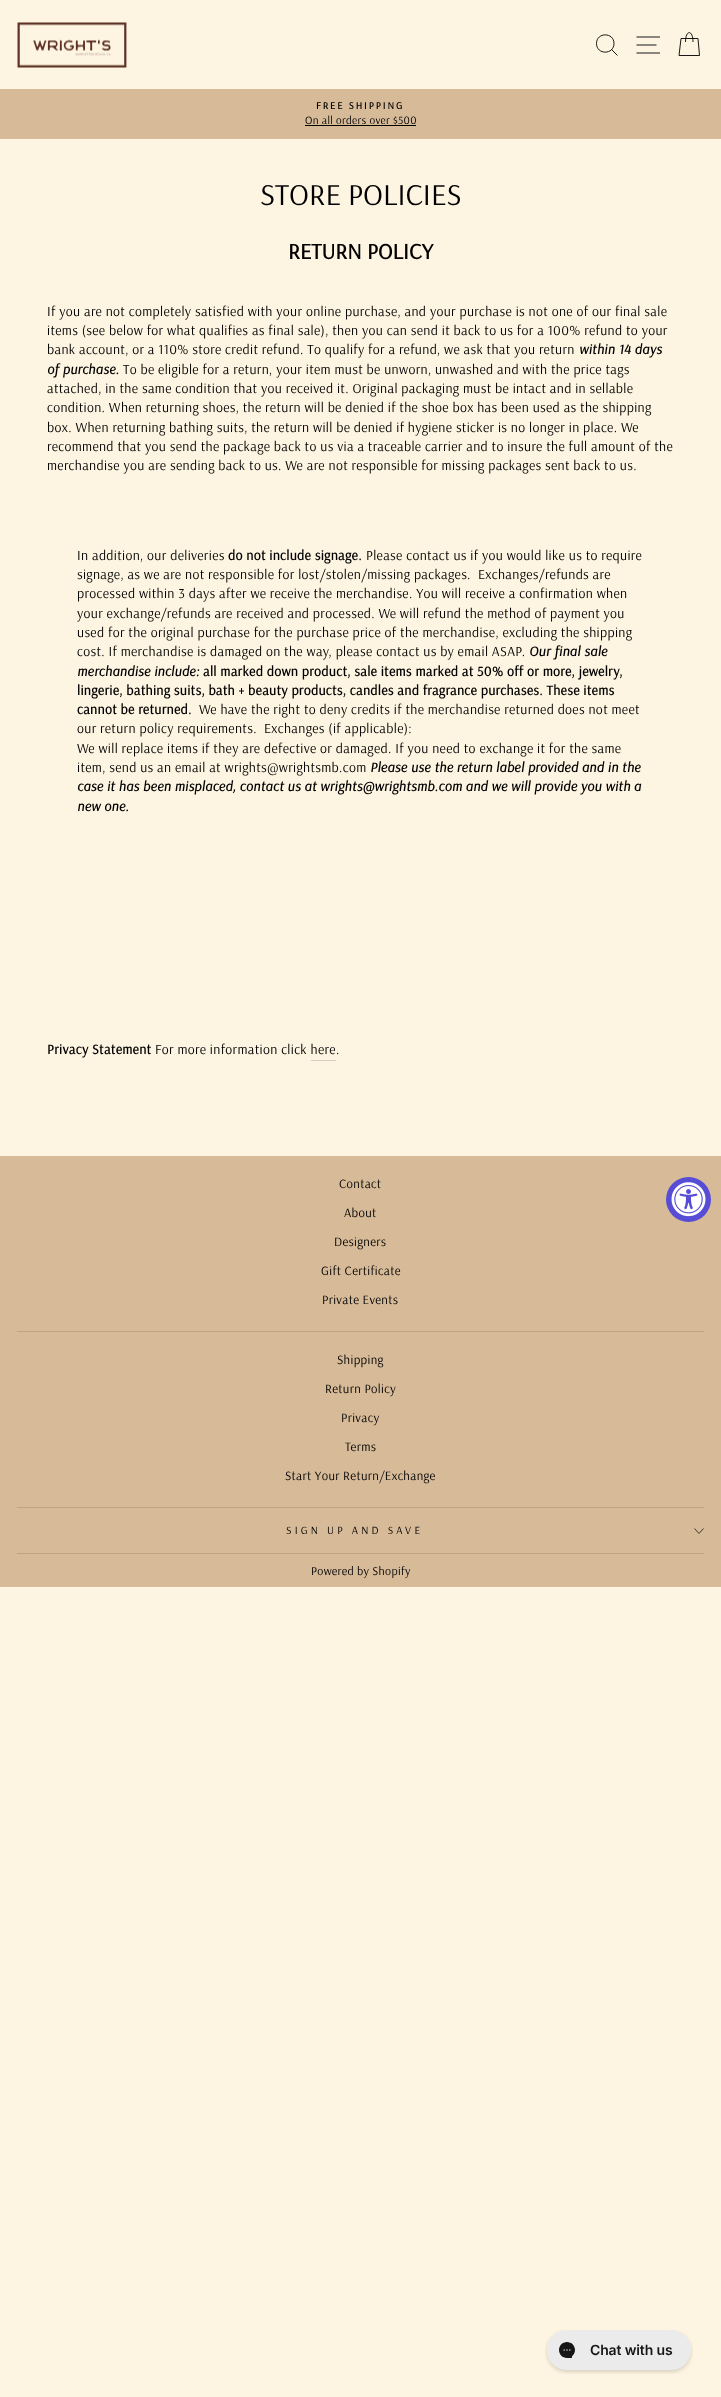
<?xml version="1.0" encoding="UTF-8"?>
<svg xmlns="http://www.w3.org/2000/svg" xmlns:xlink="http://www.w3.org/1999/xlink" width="721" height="2397">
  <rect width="100%" height="100%" fill="#fdf4e1" />
  <image x="17" y="22" width="110" height="46" xlink:href="image1.png" />
  <path d="M 614 43.5 c 0 11.5 -17.5 11.5 -17.5 0 c 0 -11.5 17.5 -11.5 17.5 0 z m 3.5 12 l -6 -6" fill="none" stroke="#000000" stroke-width="0.9" />
  <path d="M 636.5 37 h 23.5 m -23.5 8 h 20 m -20 8 h 23.5 m 25.5 -11 c 0 -12.5 7.5 -12.5 7.5 0" fill="none" stroke="#000000" stroke-width="0.9" />
  <path d="M 681 38.5 h 17 l 1.5 17 h -20.5 z" fill="none" stroke="#000000" stroke-width="0.9" />
  <rect y="89" width="721" height="50" fill="#d7ba98" />
  <rect x="305" y="125" width="111" height="1" fill="#000000" />
  <rect x="311" y="1060" width="25" height="1" fill="#d7cfbf" />
  <rect y="1156" width="721" height="431" fill="#d7ba98" />
  <rect x="17" y="1331" width="687" height="1" fill="#bda486" />
  <rect x="17" y="1507" width="687" height="1" fill="#bda486" />
  <path d="M 694.5 1528.5 l 4.5 5 l 4.5 -5" fill="none" stroke="#000000" stroke-width="0.7" />
  <rect x="17" y="1553" width="687" height="1" fill="#bda486" />
  <circle cx="688.5" cy="1199.5" r="22.5" fill="#574cd5" />
  <image x="671" y="1182" width="35" height="35" xlink:href="image2.png" />
  <image x="545" y="2330" width="148" height="44" xlink:href="image3.png" />
  <text x="316" y="109" style="font-family: Arsenal; font-size: 10.1px; font-weight: bold; letter-spacing: 2px; fill: #000000">FREE SHIPPING</text>
  <text x="305" y="124" style="font-family: Arsenal; font-size: 11.25px; letter-spacing: 0.34px; fill: #000000">On all orders over $500</text>
  <text x="260" y="205" style="font-family: Arsenal; font-size: 30.5px; fill: #000000">STORE POLICIES</text>
  <text x="288" y="259" style="font-family: Arsenal; font-size: 22.25px; font-weight: bold; fill: #000000">RETURN POLICY</text>
  <text x="47" y="316" style="font-family: Arsenal; font-size: 13.8px; letter-spacing: 0.34px; fill: #000000">If you are not completely satisfied with your online purchase, and your purchase is not one of our final sale</text>
  <text x="47" y="335" style="font-family: Arsenal; font-size: 13.8px; letter-spacing: 0.34px; fill: #000000">items (see below for what qualifies as final sale), then you can send it back to us for a 100% refund to your</text>
  <text x="47" y="354" style="font-family: Arsenal; font-size: 13.8px; letter-spacing: 0.34px; fill: #000000">bank account, or a 110% store credit refund. To qualify for a refund, we ask that you return</text>
  <text x="579" y="354" style="font-family: Arsenal; font-size: 13.8px; font-weight: bold; font-style: italic; letter-spacing: 0.34px; fill: #000000">within 14 days</text>
  <text x="47" y="374" style="font-family: Arsenal; font-size: 13.8px; font-weight: bold; font-style: italic; letter-spacing: 0.34px; fill: #000000">of purchase.</text>
  <text x="123" y="374" style="font-family: Arsenal; font-size: 13.8px; letter-spacing: 0.34px; fill: #000000">To be eligible for a return, your item must be unworn, unwashed and with the price tags</text>
  <text x="47" y="393" style="font-family: Arsenal; font-size: 13.8px; letter-spacing: 0.34px; fill: #000000">attached, in the same condition that you received it. Original packaging must be intact and in sellable</text>
  <text x="47" y="412" style="font-family: Arsenal; font-size: 13.8px; letter-spacing: 0.34px; fill: #000000">condition. When returning shoes, the return will be denied if the shoe box has been used as the shipping</text>
  <text x="47" y="432" style="font-family: Arsenal; font-size: 13.8px; letter-spacing: 0.34px; fill: #000000">box. When returning bathing suits, the return will be denied if hygiene sticker is no longer in place. We</text>
  <text x="47" y="451" style="font-family: Arsenal; font-size: 13.8px; letter-spacing: 0.34px; fill: #000000">recommend that you send the package back to us via a traceable carrier and to insure the full amount of the</text>
  <text x="47" y="470" style="font-family: Arsenal; font-size: 13.8px; letter-spacing: 0.34px; fill: #000000">merchandise you are sending back to us. We are not responsible for missing packages sent back to us.</text>
  <text x="77" y="560" style="font-family: Arsenal; font-size: 13.8px; letter-spacing: 0.34px; fill: #000000">In addition, our deliveries</text>
  <text x="228" y="560" style="font-family: Arsenal; font-size: 13.8px; font-weight: bold; letter-spacing: 0.34px; fill: #000000">do not include signage.</text>
  <text x="366" y="560" style="font-family: Arsenal; font-size: 13.8px; letter-spacing: 0.34px; fill: #000000">Please contact us if you would like us to require</text>
  <text x="77" y="579" style="font-family: Arsenal; font-size: 13.8px; letter-spacing: 0.34px; fill: #000000">signage, as we are not responsible for lost/stolen/missing packages.</text>
  <text x="478" y="579" style="font-family: Arsenal; font-size: 13.8px; letter-spacing: 0.34px; fill: #000000">Exchanges/refunds are</text>
  <text x="77" y="598" style="font-family: Arsenal; font-size: 13.8px; letter-spacing: 0.34px; fill: #000000">processed within 3 days after we receive the merchandise. You will receive a confirmation when</text>
  <text x="77" y="618" style="font-family: Arsenal; font-size: 13.8px; letter-spacing: 0.34px; fill: #000000">your exchange/refunds are received and processed. We will refund the method of payment you</text>
  <text x="77" y="637" style="font-family: Arsenal; font-size: 13.8px; letter-spacing: 0.34px; fill: #000000">used for the original purchase for the purchase price of the merchandise, excluding the shipping</text>
  <text x="77" y="656" style="font-family: Arsenal; font-size: 13.8px; letter-spacing: 0.34px; fill: #000000">cost. If merchandise is damaged on the way, please contact us by email ASAP.</text>
  <text x="529" y="656" style="font-family: Arsenal; font-size: 13.8px; font-weight: bold; font-style: italic; letter-spacing: 0.34px; fill: #000000">Our final sale</text>
  <text x="77" y="676" style="font-family: Arsenal; font-size: 13.8px; font-weight: bold; font-style: italic; letter-spacing: 0.34px; fill: #000000">merchandise include:</text>
  <text x="203" y="676" style="font-family: Arsenal; font-size: 13.8px; font-weight: bold; letter-spacing: 0.34px; fill: #000000">all marked down product, sale items marked at 50% off or more, jewelry,</text>
  <text x="77" y="695" style="font-family: Arsenal; font-size: 13.8px; font-weight: bold; letter-spacing: 0.34px; fill: #000000">lingerie, bathing suits, bath + beauty products, candles and fragrance purchases. These items</text>
  <text x="77" y="714" style="font-family: Arsenal; font-size: 13.8px; font-weight: bold; letter-spacing: 0.34px; fill: #000000">cannot be returned.</text>
  <text x="199" y="714" style="font-family: Arsenal; font-size: 13.8px; letter-spacing: 0.34px; fill: #000000">We have the right to deny credits if the merchandise returned does not meet</text>
  <text x="77" y="733" style="font-family: Arsenal; font-size: 13.8px; letter-spacing: 0.34px; fill: #000000" xml:space="preserve">our return policy requirements.  Exchanges (if applicable):</text>
  <text x="77" y="753" style="font-family: Arsenal; font-size: 13.8px; letter-spacing: 0.34px; fill: #000000">We will replace items if they are defective or damaged. If you need to exchange it for the same</text>
  <text x="77" y="772" style="font-family: Arsenal; font-size: 13.8px; letter-spacing: 0.34px; fill: #000000">item, send us an email at wrights@wrightsmb.com</text>
  <text x="370" y="772" style="font-family: Arsenal; font-size: 13.8px; font-weight: bold; font-style: italic; letter-spacing: 0.34px; fill: #000000">Please use the return label provided and in the</text>
  <text x="77" y="791" style="font-family: Arsenal; font-size: 13.8px; font-weight: bold; font-style: italic; letter-spacing: 0.34px; fill: #000000">case it has been misplaced, contact us at wrights@wrightsmb.com and we will provide you with a</text>
  <text x="77" y="811" style="font-family: Arsenal; font-size: 13.8px; font-weight: bold; font-style: italic; letter-spacing: 0.34px; fill: #000000">new one.</text>
  <text x="47" y="1054" style="font-family: Arsenal; font-size: 13.8px; font-weight: bold; letter-spacing: 0.34px; fill: #000000">Privacy Statement</text>
  <text x="155" y="1054" style="font-family: Arsenal; font-size: 13.8px; letter-spacing: 0.34px; fill: #000000">For more information click here</text>
  <text x="336" y="1054" style="font-family: Arsenal; font-size: 13.8px; letter-spacing: 0.34px; fill: #000000">.</text>
  <text x="339" y="1188" style="font-family: Arsenal; font-size: 12.75px; letter-spacing: 0.34px; fill: #000000">Contact</text>
  <text x="344" y="1217" style="font-family: Arsenal; font-size: 12.75px; letter-spacing: 0.34px; fill: #000000">About</text>
  <text x="334" y="1246" style="font-family: Arsenal; font-size: 12.75px; letter-spacing: 0.34px; fill: #000000">Designers</text>
  <text x="321" y="1275" style="font-family: Arsenal; font-size: 12.75px; letter-spacing: 0.34px; fill: #000000">Gift Certificate</text>
  <text x="322" y="1304" style="font-family: Arsenal; font-size: 12.75px; letter-spacing: 0.34px; fill: #000000">Private Events</text>
  <text x="337" y="1364" style="font-family: Arsenal; font-size: 12.75px; letter-spacing: 0.34px; fill: #000000">Shipping</text>
  <text x="325" y="1393" style="font-family: Arsenal; font-size: 12.75px; letter-spacing: 0.34px; fill: #000000">Return Policy</text>
  <text x="341" y="1422" style="font-family: Arsenal; font-size: 12.75px; letter-spacing: 0.34px; fill: #000000">Privacy</text>
  <text x="345" y="1451" style="font-family: Arsenal; font-size: 12.75px; letter-spacing: 0.34px; fill: #000000">Terms</text>
  <text x="285" y="1480" style="font-family: Arsenal; font-size: 12.75px; letter-spacing: 0.34px; fill: #000000">Start Your Return/Exchange</text>
  <text x="286" y="1534" style="font-family: Arsenal; font-size: 11px; letter-spacing: 3.25px; fill: #000000">SIGN UP AND SAVE</text>
  <text x="311" y="1575" style="font-family: Arsenal; font-size: 12px; letter-spacing: 0.34px; fill: #000000">Powered by Shopify</text>
</svg>
